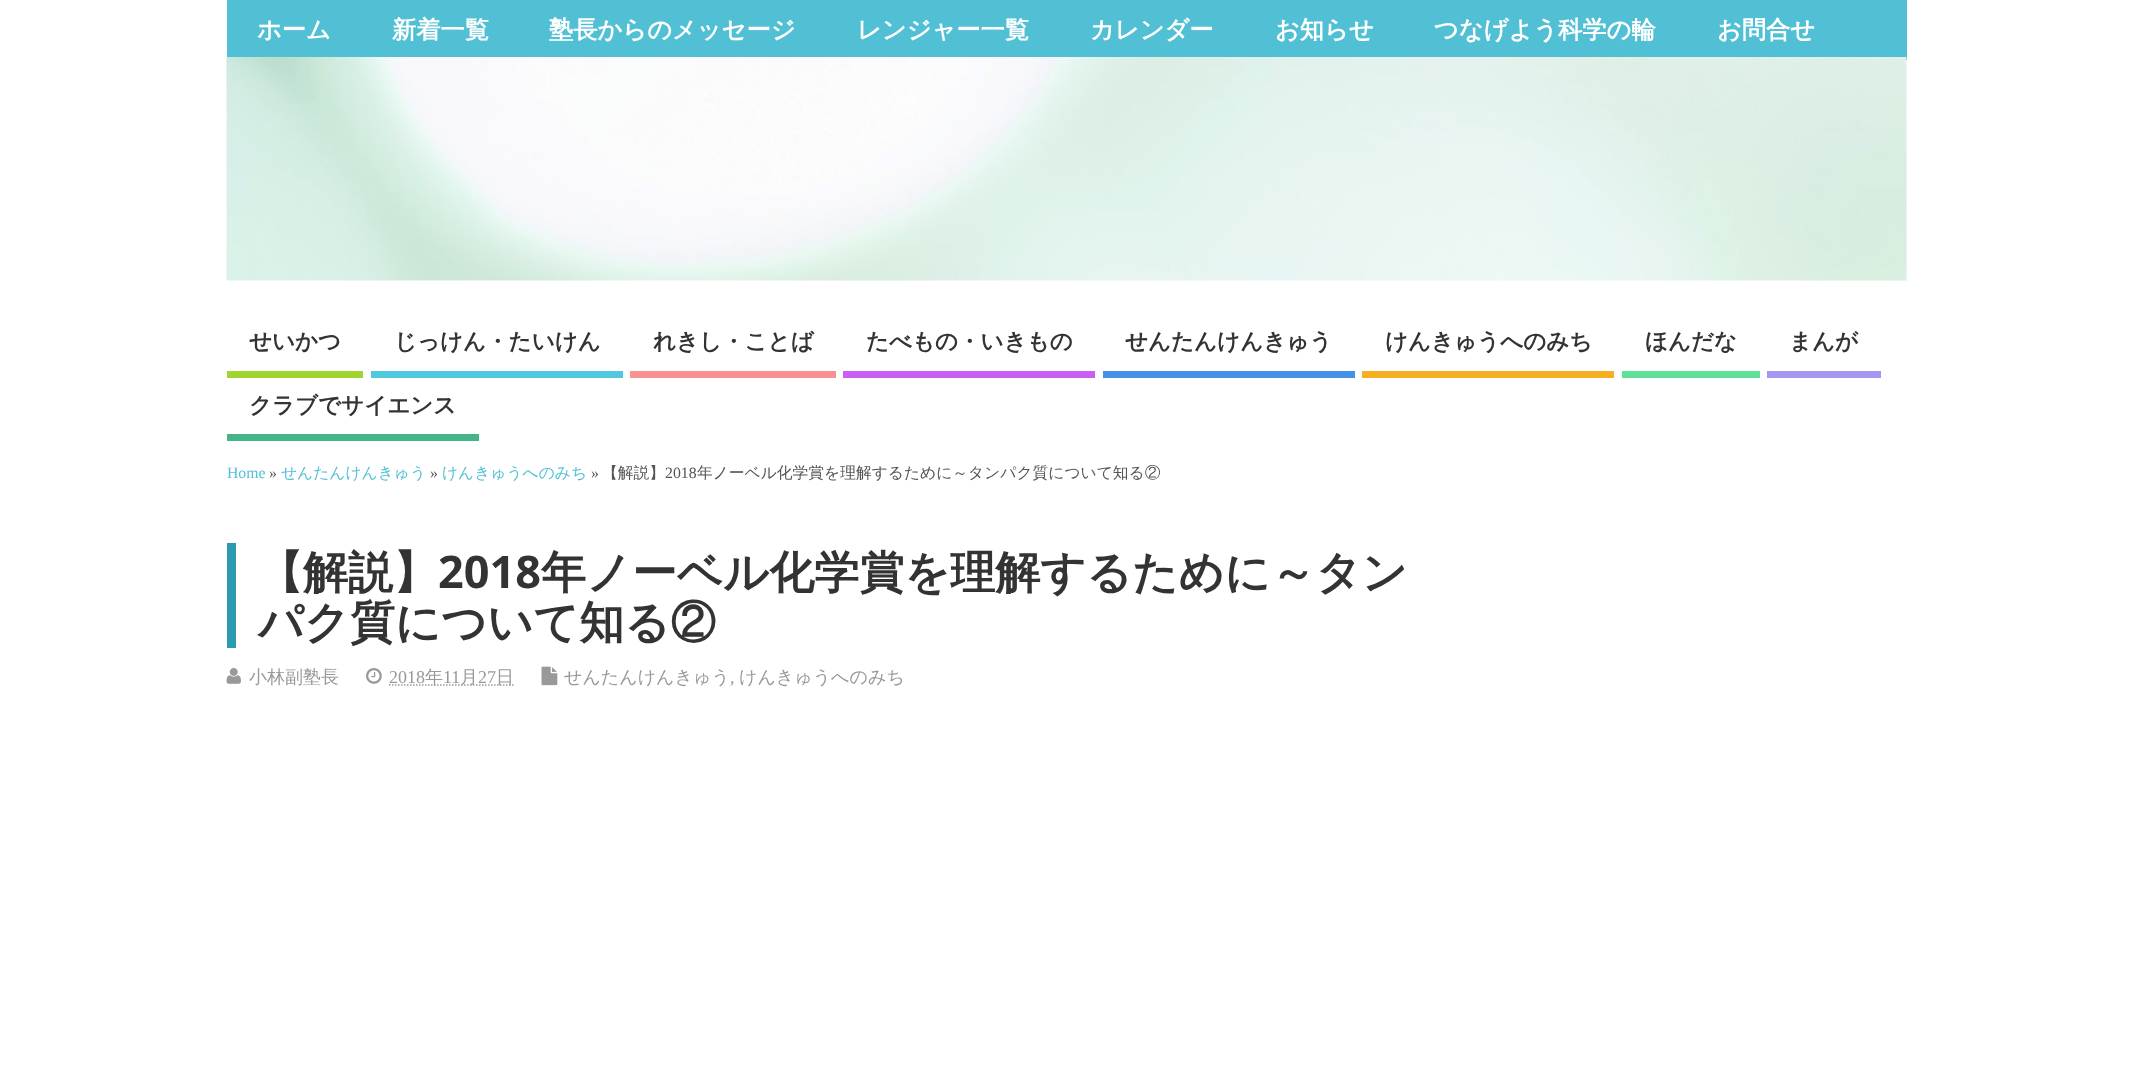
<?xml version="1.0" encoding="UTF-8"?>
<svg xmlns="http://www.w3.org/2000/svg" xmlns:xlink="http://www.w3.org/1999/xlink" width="2133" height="1072">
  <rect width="100%" height="100%" fill="#ffffff" />
  <rect x="227" width="1680" height="60" fill="#52c0d4" />
  <image x="226" y="57" width="1681" height="224" xlink:href="image1.png" />
  <rect x="227" y="371" width="136" height="7" fill="#a2d42f" />
  <rect x="371" y="371" width="252" height="7" fill="#50c9df" />
  <rect x="630" y="371" width="206" height="7" fill="#fa9191" />
  <rect x="843" y="371" width="252" height="7" fill="#cb5ef2" />
  <rect x="1103" y="371" width="252" height="7" fill="#4591e8" />
  <rect x="1362" y="371" width="252" height="7" fill="#f5af23" />
  <rect x="1622" y="371" width="138" height="7" fill="#5ee09b" />
  <rect x="1767" y="371" width="114" height="7" fill="#a796f2" />
  <rect x="227" y="434" width="252" height="7" fill="#45b588" />
  <rect x="227" y="543" width="9" height="105" fill="#2b9aae" />
  <image x="226" y="668" width="15" height="16" xlink:href="image2.png" />
  <image x="366" y="668" width="16" height="16" xlink:href="image3.png" />
  <path d="M 389 685 h 125" fill="none" stroke="#999999" stroke-width="1.5" stroke-dasharray="1.5 1.5" />
  <image x="541" y="666" width="17" height="20" xlink:href="image4.png" />
  <text x="257" y="38" style="font-family: WenQuanYi Zen Hei; font-size: 24.25px; font-weight: bold; fill: #ffffff">ホーム</text>
  <text x="392" y="38" style="font-family: WenQuanYi Zen Hei; font-size: 24.25px; font-weight: bold; fill: #ffffff">新着一覧</text>
  <text x="549" y="38" style="font-family: WenQuanYi Zen Hei; font-size: 24.25px; font-weight: bold; fill: #ffffff">塾長からのメッセージ</text>
  <text x="857" y="38" style="font-family: WenQuanYi Zen Hei; font-size: 24.25px; font-weight: bold; fill: #ffffff">レンジャー一覧</text>
  <text x="1090" y="38" style="font-family: WenQuanYi Zen Hei; font-size: 24.25px; font-weight: bold; fill: #ffffff">カレンダー</text>
  <text x="1275" y="38" style="font-family: WenQuanYi Zen Hei; font-size: 24.25px; font-weight: bold; fill: #ffffff">お知らせ</text>
  <text x="1434" y="38" style="font-family: WenQuanYi Zen Hei; font-size: 24.25px; font-weight: bold; fill: #ffffff">つなげよう科学の輪</text>
  <text x="1717" y="38" style="font-family: WenQuanYi Zen Hei; font-size: 24.25px; font-weight: bold; fill: #ffffff">お問合せ</text>
  <text x="249" y="349" style="font-family: WenQuanYi Zen Hei; font-size: 22.5px; font-weight: bold; fill: #333333">せいかつ</text>
  <text x="394" y="349" style="font-family: WenQuanYi Zen Hei; font-size: 22.5px; font-weight: bold; fill: #333333">じっけん・たいけん</text>
  <text x="653" y="349" style="font-family: WenQuanYi Zen Hei; font-size: 22.5px; font-weight: bold; fill: #333333">れきし・ことば</text>
  <text x="866" y="349" style="font-family: WenQuanYi Zen Hei; font-size: 22.5px; font-weight: bold; fill: #333333">たべもの・いきもの</text>
  <text x="1125" y="349" style="font-family: WenQuanYi Zen Hei; font-size: 22.5px; font-weight: bold; fill: #333333">せんたんけんきゅう</text>
  <text x="1385" y="349" style="font-family: WenQuanYi Zen Hei; font-size: 22.5px; font-weight: bold; fill: #333333">けんきゅうへのみち</text>
  <text x="1645" y="349" style="font-family: WenQuanYi Zen Hei; font-size: 22.5px; font-weight: bold; fill: #333333">ほんだな</text>
  <text x="1789" y="349" style="font-family: WenQuanYi Zen Hei; font-size: 22.5px; font-weight: bold; fill: #333333">まんが</text>
  <text x="249" y="413" style="font-family: WenQuanYi Zen Hei; font-size: 22.5px; font-weight: bold; fill: #333333">クラブでサイエンス</text>
  <text x="227" y="478" style="font-family: Liberation Serif; font-size: 15.75px; fill: #52c0d4">Home</text>
  <text x="269" y="478" style="font-family: Liberation Serif; font-size: 15.75px; fill: #555555">»</text>
  <text x="281" y="478" style="font-family: WenQuanYi Zen Hei; font-size: 15.75px; font-weight: 500; fill: #52c0d4">せんたんけんきゅう</text>
  <text x="430" y="478" style="font-family: Liberation Serif; font-size: 15.75px; fill: #555555">»</text>
  <text x="442" y="478" style="font-family: WenQuanYi Zen Hei; font-size: 15.75px; font-weight: 500; fill: #52c0d4">けんきゅうへのみち</text>
  <text x="591" y="478" style="font-family: Liberation Serif; font-size: 15.75px; fill: #555555">»</text>
  <text x="602" y="478" style="font-family: WenQuanYi Zen Hei; font-size: 15.75px; font-weight: 500; fill: #555555">【解説】</text>
  <text x="665" y="478" style="font-family: Liberation Serif; font-size: 15.75px; fill: #555555">2018</text>
  <text x="697" y="478" style="font-family: WenQuanYi Zen Hei; font-size: 15.75px; font-weight: 500; fill: #555555">年ノーベル化学賞を理解するために～タンパク質について知る②</text>
  <text x="258" y="588" style="font-family: WenQuanYi Zen Hei; font-size: 45px; font-weight: bold; fill: #333333">【解説】</text>
  <text x="438" y="588" style="font-family: Open Sans; font-size: 45px; font-weight: bold; fill: #333333">2018</text>
  <text x="541" y="588" style="font-family: WenQuanYi Zen Hei; font-size: 45px; font-weight: bold; fill: #333333">年ノーベル化学賞を理解するために～タン</text>
  <text x="258" y="638" style="font-family: WenQuanYi Zen Hei; font-size: 45px; font-weight: bold; fill: #333333">パク質について知る②</text>
  <text x="249" y="683" style="font-family: WenQuanYi Zen Hei; font-size: 18px; font-weight: 500; fill: #999999">小林副塾長</text>
  <text x="389" y="683" style="font-family: Liberation Serif; font-size: 18px; fill: #999999">2018</text>
  <text x="425" y="683" style="font-family: WenQuanYi Zen Hei; font-size: 18px; font-weight: 500; fill: #999999">年</text>
  <text x="443" y="683" style="font-family: Liberation Serif; font-size: 18px; fill: #999999">11</text>
  <text x="460" y="683" style="font-family: WenQuanYi Zen Hei; font-size: 18px; font-weight: 500; fill: #999999">月</text>
  <text x="478" y="683" style="font-family: Liberation Serif; font-size: 18px; fill: #999999">27</text>
  <text x="496" y="683" style="font-family: WenQuanYi Zen Hei; font-size: 18px; font-weight: 500; fill: #999999">日</text>
  <text x="564" y="683" style="font-family: WenQuanYi Zen Hei; font-size: 18px; font-weight: 500; fill: #999999">せんたんけんきゅう</text>
  <text x="730" y="683" style="font-family: Liberation Serif; font-size: 18px; fill: #999999">,</text>
  <text x="739" y="683" style="font-family: WenQuanYi Zen Hei; font-size: 18px; font-weight: 500; fill: #999999">けんきゅうへのみち</text>
</svg>
